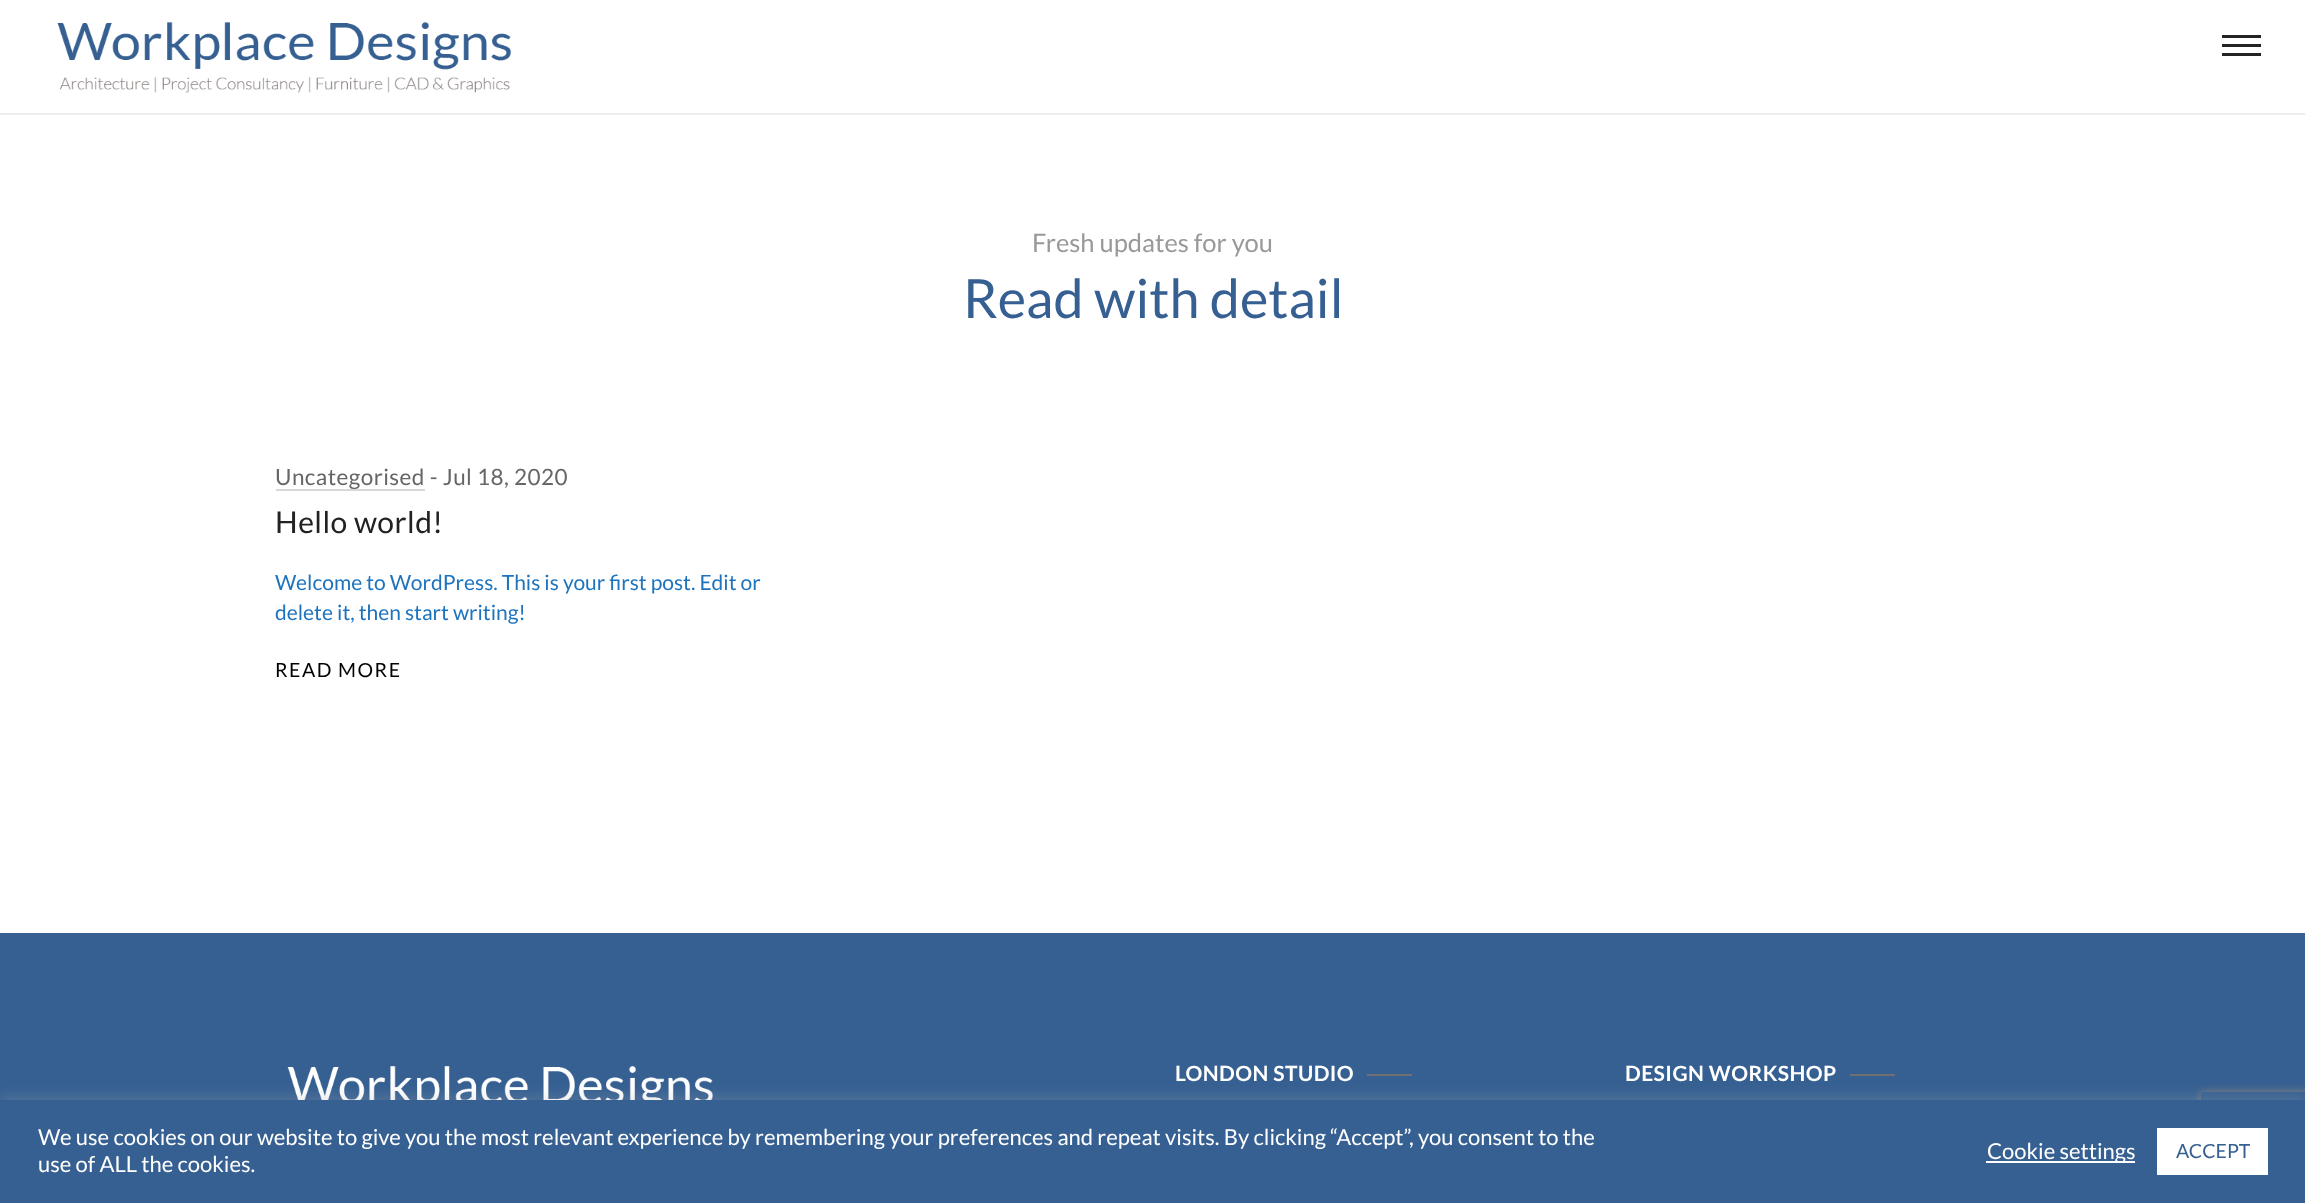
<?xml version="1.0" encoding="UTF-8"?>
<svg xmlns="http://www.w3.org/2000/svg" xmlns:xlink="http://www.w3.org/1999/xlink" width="2305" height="1203">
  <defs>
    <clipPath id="clip1"><path d="M 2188 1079 h 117 v 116 h -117 z m 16 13 h 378 c 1.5 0 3 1.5 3 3 v 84 c 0 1.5 -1.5 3 -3 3 h -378 c -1.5 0 -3 -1.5 -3 -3 v -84 c 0 -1.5 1.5 -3 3 -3 z" clip-rule="evenodd" /></clipPath>
  </defs>
  <rect width="100%" height="100%" fill="#ffffff" />
  <rect y="113" width="2305" height="2" fill="#eeeeee" />
  <image x="57" y="22" width="455" height="71" xlink:href="image1.png" />
  <rect x="2222" y="44" width="39" height="3" fill="#232323" />
  <rect x="2222" y="35" width="39" height="3" fill="#232323" />
  <rect x="2222" y="53" width="39" height="3" fill="#232323" />
  <rect x="276" y="489" width="149" height="2" fill="#d7d7d7" />
  <rect y="933" width="2305" height="167" fill="#366092" />
  <image x="287" y="1066" width="426" height="34" xlink:href="image2.png" />
  <rect x="1367" y="1074" width="45" height="2" fill="#707070" />
  <rect x="1850" y="1074" width="45" height="2" fill="#707070" />
  <g clip-path="url(#clip1)">
    <rect x="2201" y="1092" width="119" height="90" rx="3" fill="#808080" filter="blur(4px)" />
  </g>
  <rect y="1098" width="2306" height="104" fill="#acabab" fill-opacity="0.3" filter="blur(7.5px)" />
  <rect y="1100" width="2305" height="103" fill="#366092" />
  <rect x="1986" y="1161" width="149" height="2" fill="#ffffff" />
  <rect x="2157" y="1128" width="111" height="47" fill="#ffffff" />
  <text x="1032" y="252" style="font-family: Lato; font-size: 25.5px; fill: #999999">Fresh updates for you</text>
  <text x="963" y="318" style="font-family: Lato; font-size: 54px; fill: #366092">Read with detail</text>
  <text x="275" y="485" style="font-family: Lato; font-size: 22.5px; letter-spacing: 0.45px; fill: #666666">Uncategorised - Jul 18, 2020</text>
  <text x="275" y="533" style="font-family: Lato; font-size: 30px; letter-spacing: 0.45px; fill: #222222">Hello world!</text>
  <text x="275" y="590" style="font-family: Lato; font-size: 21px; fill: #1e73be">Welcome to WordPress. This is your first post. Edit or</text>
  <text x="275" y="620" style="font-family: Lato; font-size: 21px; fill: #1e73be">delete it, then start writing!</text>
  <text x="275" y="677" style="font-family: Lato; font-size: 19.5px; letter-spacing: 1.5px; fill: #000000">READ MORE</text>
  <text x="1175" y="1081" style="font-family: Lato; font-size: 21px; font-weight: bold; letter-spacing: 0.45px; fill: #ffffff">LONDON STUDIO</text>
  <text x="1625" y="1081" style="font-family: Lato; font-size: 21px; font-weight: bold; letter-spacing: 0.45px; fill: #ffffff">DESIGN WORKSHOP</text>
  <text x="38" y="1145" style="font-family: Lato; font-size: 22px; fill: #ffffff">We use cookies on our website to give you the most relevant experience by remembering your preferences and repeat visits. By clicking “Accept”, you consent to the</text>
  <text x="38" y="1172" style="font-family: Lato; font-size: 22px; fill: #ffffff">use of ALL the cookies.</text>
  <text x="1987" y="1159" style="font-family: Lato; font-size: 22px; fill: #ffffff">Cookie settings</text>
  <text x="2176" y="1158" style="font-family: Lato; font-size: 19.5px; fill: #366092">ACCEPT</text>
</svg>
